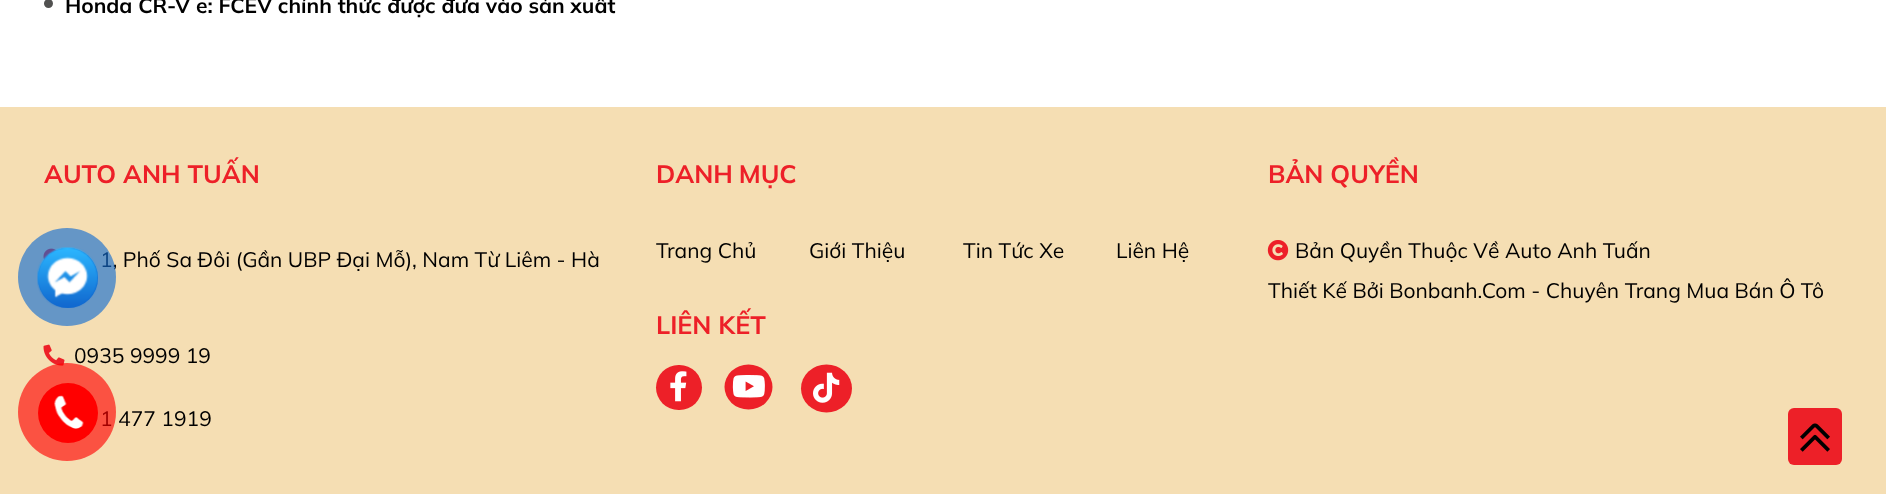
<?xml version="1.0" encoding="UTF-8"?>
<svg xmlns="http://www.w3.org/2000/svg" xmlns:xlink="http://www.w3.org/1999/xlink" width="1886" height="494">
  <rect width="100%" height="100%" fill="#ffffff" />
  <circle cx="48.5" cy="3.5" r="4.5" fill="#515150" />
  <rect y="107" width="1886" height="387" fill="#f5deb3" />
  <image x="43" y="248" width="14" height="12" xlink:href="image1.png" />
  <image x="43" y="344" width="22" height="22" xlink:href="image2.png" />
  <rect x="656" y="365" width="46" height="45" rx="22.5" fill="#ed2028" />
  <image x="670" y="371" width="17" height="31" xlink:href="image3.png" />
  <ellipse cx="748.5" cy="387" rx="24" ry="22.5" fill="#ed2028" />
  <image x="732" y="375" width="33" height="23" xlink:href="image4.png" />
  <ellipse cx="826.5" cy="388.5" rx="25.5" ry="24" fill="#ed2028" />
  <image x="813" y="372" width="27" height="31" xlink:href="image5.png" />
  <image x="1267" y="240" width="22" height="21" xlink:href="image6.png" />
  <rect x="1788" y="408" width="54" height="57" rx="6" fill="#ed2028" />
  <image x="1800" y="423" width="30" height="29" xlink:href="image9.png" />
  <text x="65" y="13" style="font-family: Mulish; font-size: 21px; font-weight: bold; fill: #000000">Honda CR-V e: FCEV chính thức được đưa vào sản xuất</text>
  <text x="44" y="183" style="font-family: Mulish; font-size: 25.25px; font-weight: bold; fill: #ed2028">AUTO ANH TUẤN</text>
  <text x="100" y="267" style="font-family: Mulish; font-size: 21px; fill: #000000">1, Phố Sa Đôi (Gần UBP Đại Mỗ), Nam Từ Liêm - Hà</text>
  <text x="74" y="363" style="font-family: Mulish; font-size: 21px; fill: #000000">0935 9999 19</text>
  <text x="100" y="426" style="font-family: Mulish; font-size: 21px; fill: #000000">1 477 1919</text>
  <text x="656" y="183" word-spacing="-1" style="font-family: Mulish; font-size: 25.25px; font-weight: bold; fill: #ed2028">DANH MỤC</text>
  <text x="656" y="258" style="font-family: Mulish; font-size: 21px; fill: #000000">Trang Chủ</text>
  <text x="809" y="258" style="font-family: Mulish; font-size: 21px; fill: #000000">Giới Thiệu</text>
  <text x="963" y="258" style="font-family: Mulish; font-size: 21px; fill: #000000">Tin Tức Xe</text>
  <text x="1116" y="258" style="font-family: Mulish; font-size: 21px; fill: #000000">Liên Hệ</text>
  <text x="656" y="334" style="font-family: Mulish; font-size: 25.25px; font-weight: bold; fill: #ed2028">LIÊN KẾT</text>
  <text x="1268" y="183" style="font-family: Mulish; font-size: 25.25px; font-weight: bold; fill: #ed2028">BẢN QUYỀN</text>
  <text x="1295" y="258" style="font-family: Mulish; font-size: 21px; fill: #000000">Bản Quyền Thuộc Về Auto Anh Tuấn</text>
  <text x="1268" y="298" style="font-family: Mulish; font-size: 21px; fill: #000000">Thiết Kế Bởi Bonbanh.Com - Chuyên Trang Mua Bán Ô Tô</text>
  <circle cx="67" cy="277" r="49" fill="#126bd1" fill-opacity="0.63" />
  <circle cx="68" cy="278" r="30" fill="#126bd1" />
  <image x="37" y="247" width="61" height="61" xlink:href="image7.png" />
  <circle cx="67" cy="412" r="49" fill="#ff0000" fill-opacity="0.63" />
  <circle cx="68" cy="413" r="30" fill="#ff0000" />
  <image x="54" y="395" width="30" height="34" xlink:href="image8.png" />
</svg>
